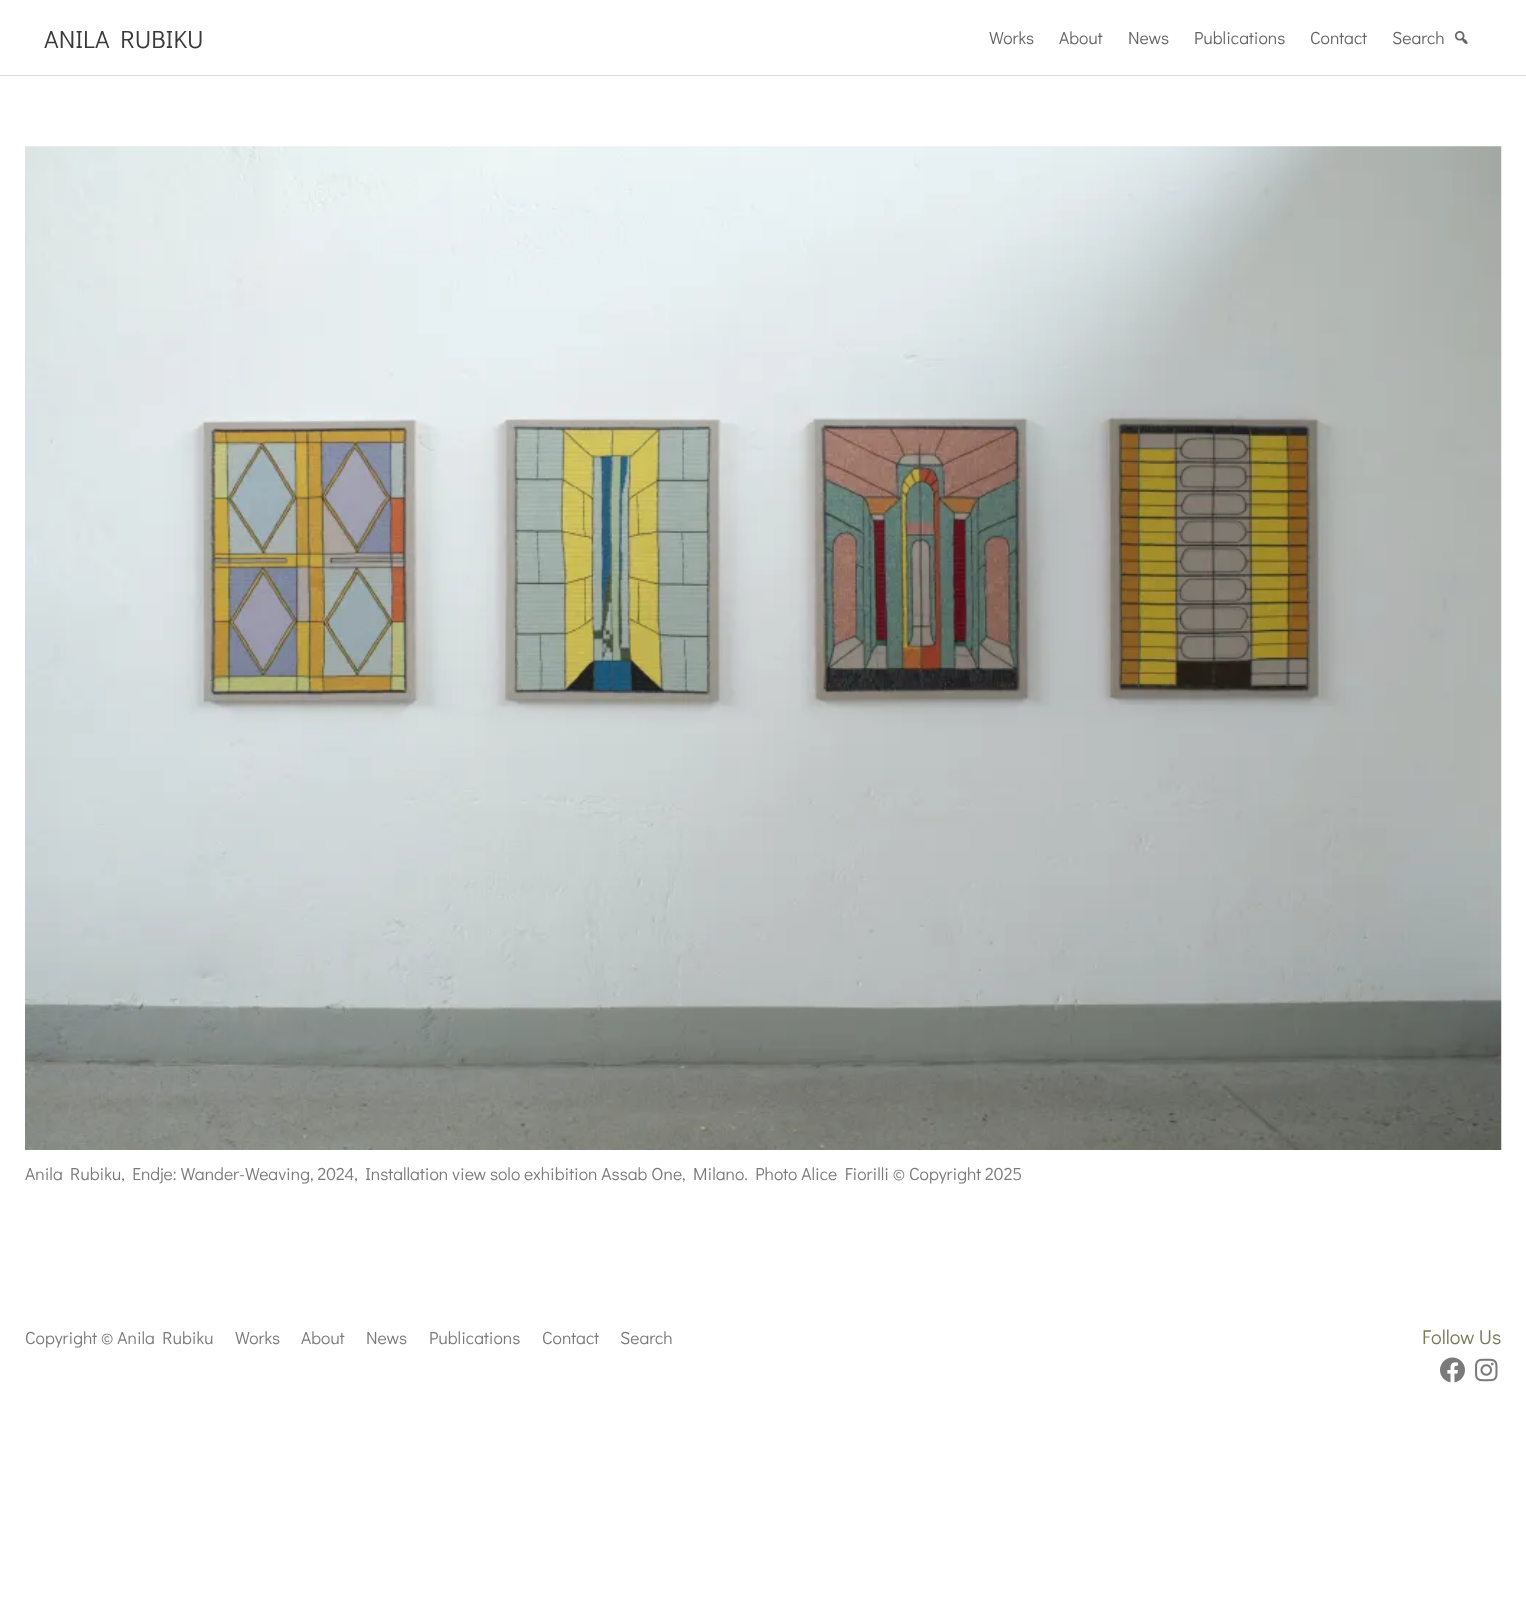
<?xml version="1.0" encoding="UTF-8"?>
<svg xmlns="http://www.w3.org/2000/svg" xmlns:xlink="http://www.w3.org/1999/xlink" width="1526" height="1620">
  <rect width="100%" height="100%" fill="#ffffff" />
  <rect y="75" width="1526" height="1" fill="#dddddd" />
  <image x="1454" y="31" width="14" height="13" xlink:href="image1.png" />
  <image x="25" y="146" width="1477" height="1004" xlink:href="image2.png" />
  <image x="1440" y="1357" width="25" height="26" xlink:href="image3.png" />
  <image x="1475" y="1358" width="23" height="24" xlink:href="image4.png" />
  <text x="44" y="48" style="font-family: Didact Gothic; font-size: 25px; fill: #3a3a3a">ANILA RUBIKU</text>
  <text x="989" y="44" style="font-family: Didact Gothic; font-size: 17.5px; fill: #666666">Works</text>
  <text x="1059" y="44" style="font-family: Didact Gothic; font-size: 17.5px; fill: #666666">About</text>
  <text x="1128" y="44" style="font-family: Didact Gothic; font-size: 17.5px; fill: #666666">News</text>
  <text x="1194" y="44" style="font-family: Didact Gothic; font-size: 17.5px; fill: #666666">Publications</text>
  <text x="1310" y="44" style="font-family: Didact Gothic; font-size: 17.5px; fill: #666666">Contact</text>
  <text x="1392" y="44" style="font-family: Didact Gothic; font-size: 17.5px; fill: #666666">Search</text>
  <text x="25" y="1180" style="font-family: Didact Gothic; font-size: 17.5px; fill: #7a7a7a">Anila Rubiku, Endje: Wander-Weaving, 2024, Installation view solo exhibition Assab One, Milano. Photo Alice Fiorilli © Copyright 2025</text>
  <text x="25" y="1344" style="font-family: Didact Gothic; font-size: 17.5px; fill: #7a7a7a">Copyright © Anila Rubiku</text>
  <text x="235" y="1344" style="font-family: Didact Gothic; font-size: 17.5px; fill: #7a7a7a">Works</text>
  <text x="301" y="1344" style="font-family: Didact Gothic; font-size: 17.5px; fill: #7a7a7a">About</text>
  <text x="366" y="1344" style="font-family: Didact Gothic; font-size: 17.5px; fill: #7a7a7a">News</text>
  <text x="429" y="1344" style="font-family: Didact Gothic; font-size: 17.5px; fill: #7a7a7a">Publications</text>
  <text x="542" y="1344" style="font-family: Didact Gothic; font-size: 17.5px; fill: #7a7a7a">Contact</text>
  <text x="620" y="1344" style="font-family: Didact Gothic; font-size: 17.5px; fill: #7a7a7a">Search</text>
  <text x="1422" y="1344" style="font-family: Didact Gothic; font-size: 20px; fill: #7a7a58">Follow Us</text>
</svg>
